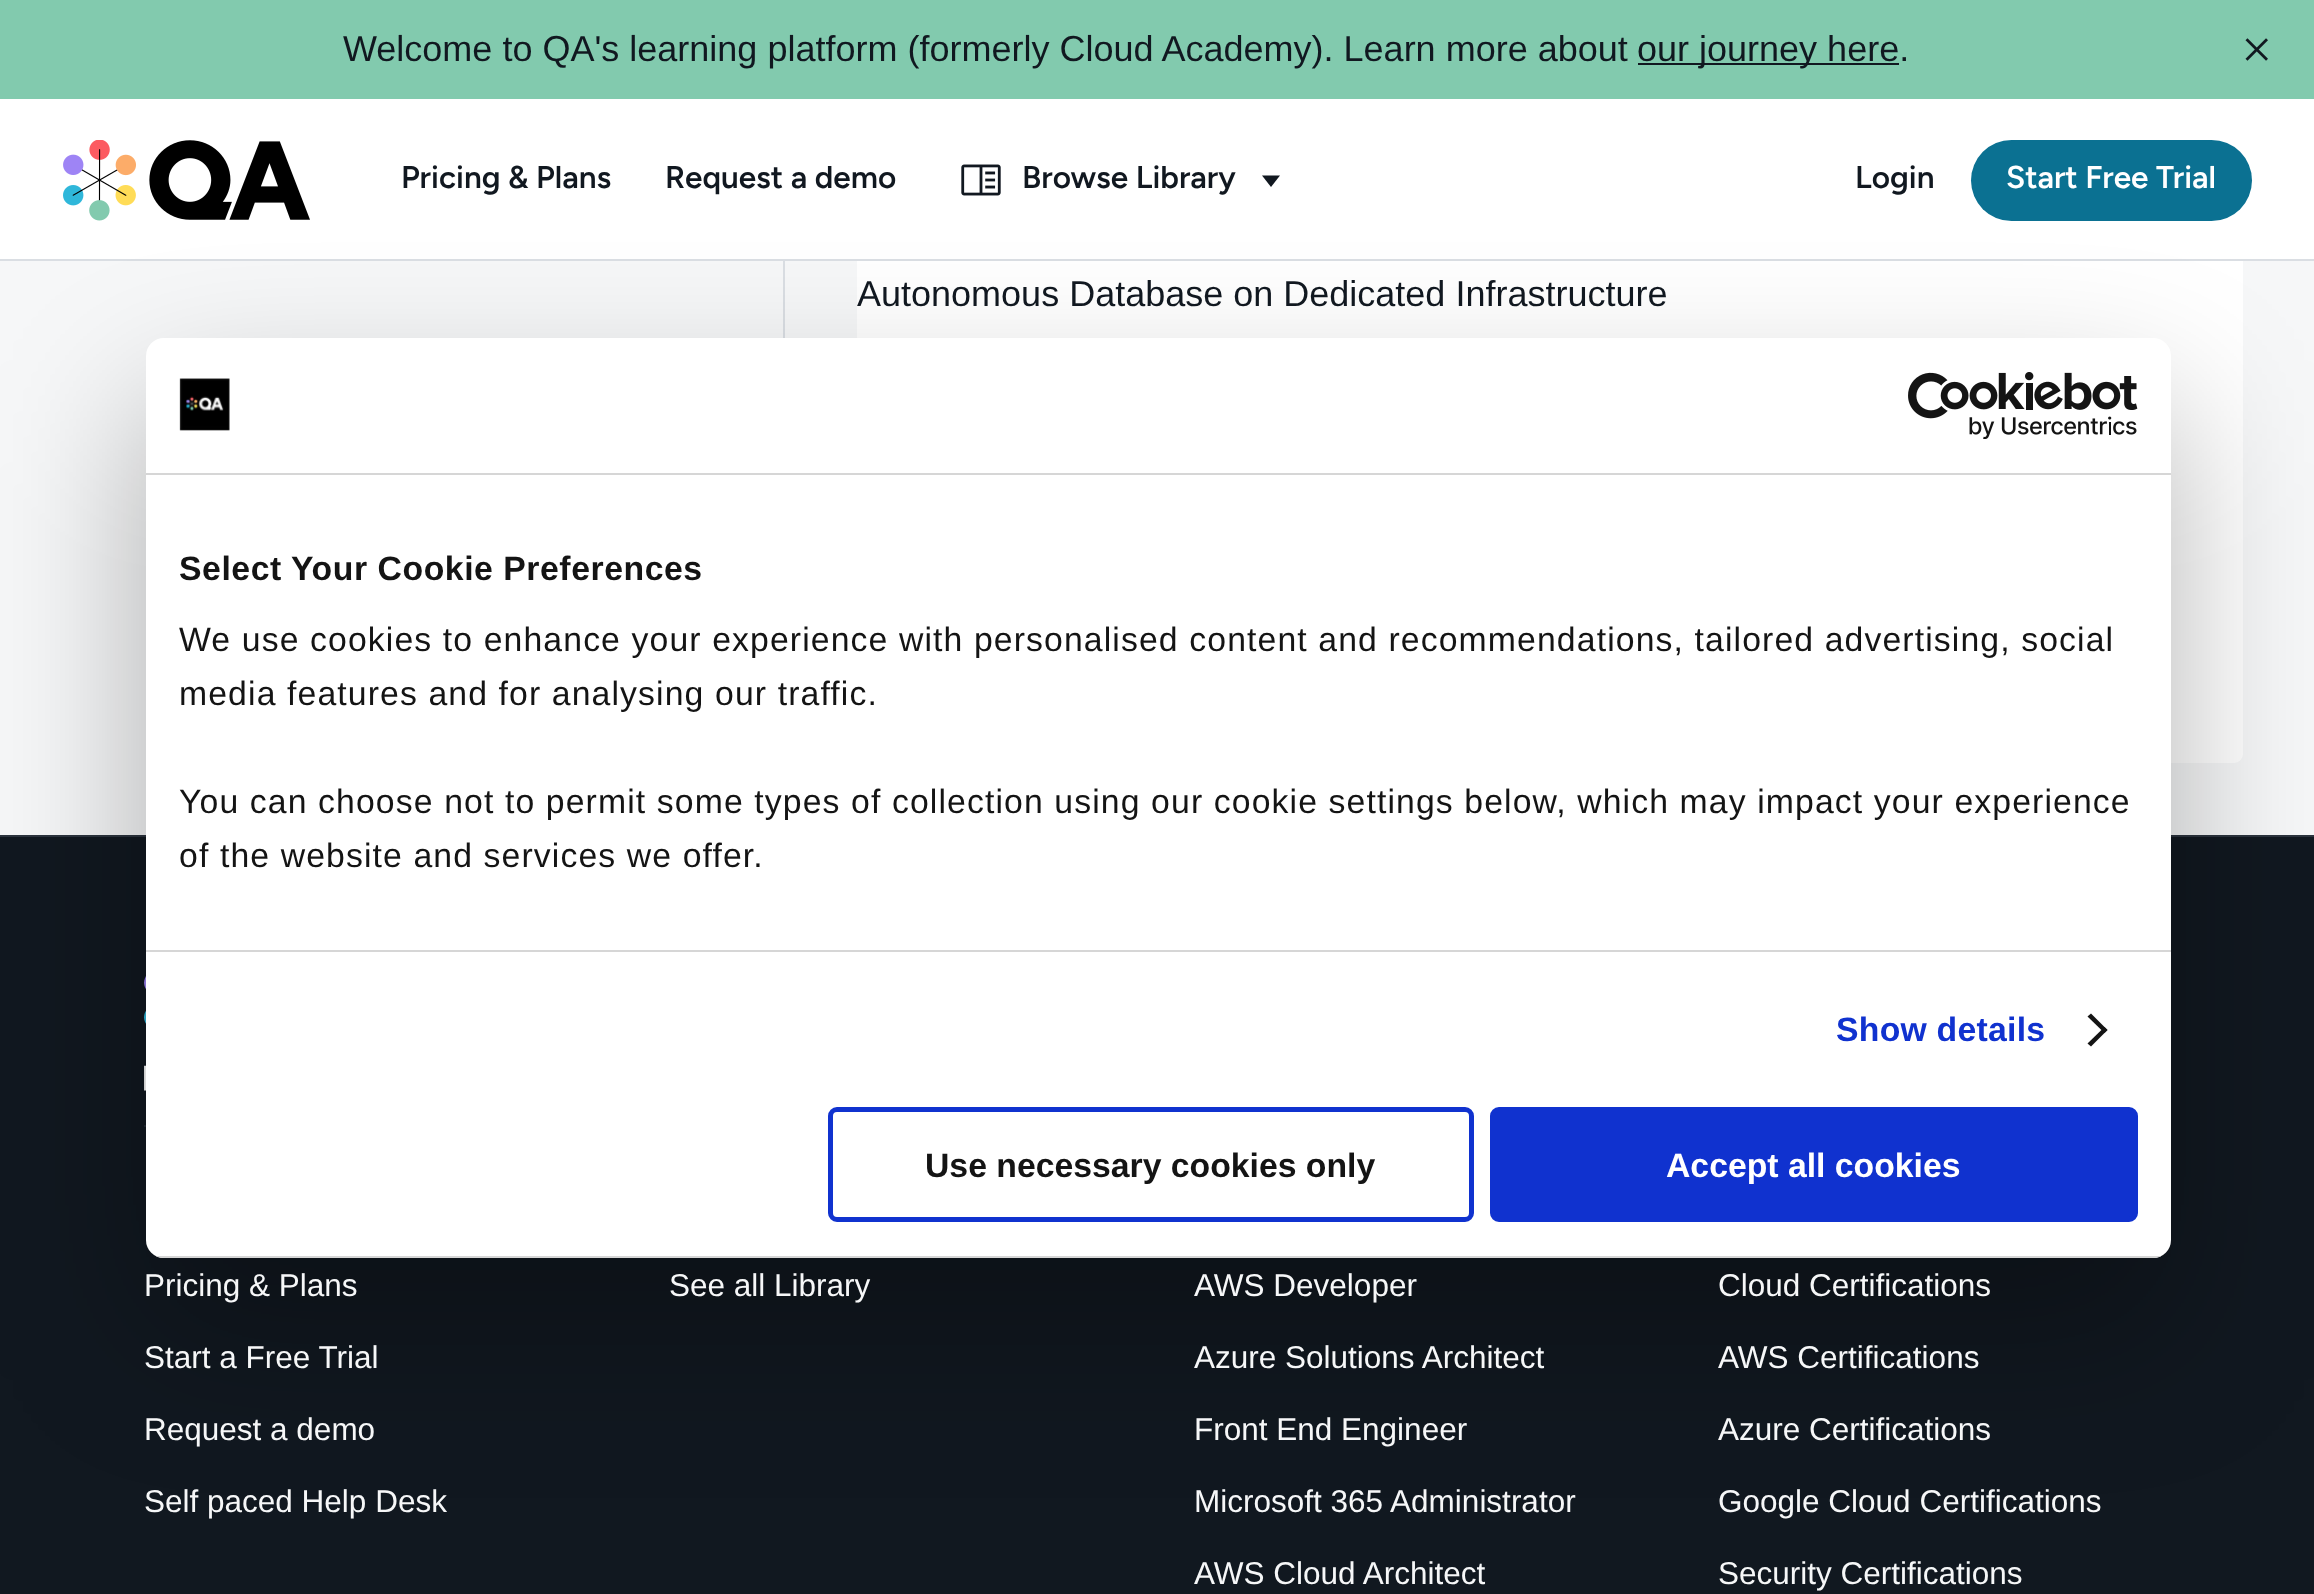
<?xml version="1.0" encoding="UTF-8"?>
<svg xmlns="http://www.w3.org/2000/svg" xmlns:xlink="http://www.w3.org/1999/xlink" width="2314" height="1594">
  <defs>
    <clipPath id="clip1"><rect x="146" y="338" width="2025" height="920" rx="18" /></clipPath>
  </defs>
  <rect width="100%" height="100%" fill="#f6f7f8" />
  <rect width="2314" height="99" fill="#82caae" />
  <rect x="1638" y="63" width="261" height="2" fill="#111820" />
  <image x="2245" y="38" width="23" height="23" xlink:href="image1.png" />
  <rect x="857" y="133" width="1386" height="630" rx="9" fill="#ffffff" />
  <rect y="99" width="2314" height="160" fill="#ffffff" />
  <rect y="259" width="2314" height="2" fill="#dadee3" />
  <image x="63" y="140" width="247" height="81" xlink:href="image2.png" />
  <image x="961" y="164" width="40" height="32" xlink:href="image3.png" />
  <path d="M 1280 175.5 l -9 11.5 l -9 -11.5 z" fill="#111820" />
  <rect x="1971" y="140" width="281" height="81" rx="40.5" fill="#0b7192" />
  <rect x="783" y="261" width="2" height="77" fill="#dadee3" />
  <rect y="837" width="2314" height="757" fill="#111820" />
  <rect y="835" width="2314" height="2" fill="#2c343e" />
  <image x="144" y="976" width="2" height="115" xlink:href="image4.png" />
  <rect x="144" y="1125" width="2" height="2" fill="#232b34" />
  <rect x="146" y="410" width="2025" height="920" rx="18" fill="#000000" fill-opacity="0.3" filter="blur(76.5px)" />
  <rect x="146" y="338" width="2025" height="920" rx="18" fill="#ffffff" />
  <rect x="146" y="473" width="2025" height="2" fill="#d6d6d6" />
  <image x="179" y="378" width="51" height="53" xlink:href="image5.png" />
  <image x="1908" y="372" width="230" height="67" xlink:href="image6.png" />
  <rect x="146" y="950" width="2025" height="2" fill="#d6d6d6" />
  <path d="M 2091 1013.5 l 16.5 16.5 l -3 3 l -17 -16.5 z" fill="#141414" />
  <path d="M 2104.5 1027 l 3 3 l -16.5 16.5 l -3.5 -3 z" fill="#141414" />
  <g clip-path="url(#clip1)">
    <rect x="156" y="1256" width="2005" height="2" fill="#d6d6d6" />
  </g>
  <rect x="830.5" y="1109.5" width="641" height="110" rx="6.5" fill="none" stroke="#1032cf" stroke-width="5" />
  <rect x="1492.5" y="1109.5" width="643" height="110" rx="6.5" fill="#1032cf" stroke="#1032cf" stroke-width="5" />
  <text x="343" y="61" style="font-family: Liberation Sans; font-size: 36px; fill: #111820">Welcome to QA's learning platform (formerly Cloud Academy). Learn more about</text>
  <text x="1637" y="61" style="font-family: Liberation Sans; font-size: 36px; fill: #111820">our journey here.</text>
  <text x="401" y="188" style="font-family: Figtree; font-size: 31.5px; font-weight: 600; fill: #111820">Pricing &amp; Plans</text>
  <text x="665" y="188" style="font-family: Figtree; font-size: 31.5px; font-weight: 600; fill: #111820">Request a demo</text>
  <text x="1022" y="188" style="font-family: Figtree; font-size: 31.5px; font-weight: 600; fill: #111820">Browse Library</text>
  <text x="1855" y="188" style="font-family: Figtree; font-size: 31.5px; font-weight: 600; fill: #111820">Login</text>
  <text x="2006" y="188" style="font-family: Figtree; font-size: 31.5px; font-weight: 600; fill: #ffffff">Start Free Trial</text>
  <text x="857" y="306" style="font-family: Liberation Sans; font-size: 36px; fill: #111820">Autonomous Database on Dedicated Infrastructure</text>
  <text x="144" y="1296" style="font-family: Liberation Sans; font-size: 31.5px; fill: #f6f7f8">Pricing &amp; Plans</text>
  <text x="144" y="1368" style="font-family: Liberation Sans; font-size: 31.5px; fill: #f6f7f8">Start a Free Trial</text>
  <text x="144" y="1440" style="font-family: Liberation Sans; font-size: 31.5px; fill: #f6f7f8">Request a demo</text>
  <text x="144" y="1512" style="font-family: Liberation Sans; font-size: 31.5px; fill: #f6f7f8">Self paced Help Desk</text>
  <text x="669" y="1296" style="font-family: Liberation Sans; font-size: 31.5px; fill: #f6f7f8">See all Library</text>
  <text x="1194" y="1296" style="font-family: Liberation Sans; font-size: 31.5px; fill: #f6f7f8">AWS Developer</text>
  <text x="1194" y="1368" style="font-family: Liberation Sans; font-size: 31.5px; fill: #f6f7f8">Azure Solutions Architect</text>
  <text x="1194" y="1440" style="font-family: Liberation Sans; font-size: 31.5px; fill: #f6f7f8">Front End Engineer</text>
  <text x="1194" y="1512" style="font-family: Liberation Sans; font-size: 31.5px; fill: #f6f7f8">Microsoft 365 Administrator</text>
  <text x="1194" y="1584" style="font-family: Liberation Sans; font-size: 31.5px; fill: #f6f7f8">AWS Cloud Architect</text>
  <text x="1718" y="1296" style="font-family: Liberation Sans; font-size: 31.5px; fill: #f6f7f8">Cloud Certifications</text>
  <text x="1718" y="1368" style="font-family: Liberation Sans; font-size: 31.5px; fill: #f6f7f8">AWS Certifications</text>
  <text x="1718" y="1440" style="font-family: Liberation Sans; font-size: 31.5px; fill: #f6f7f8">Azure Certifications</text>
  <text x="1718" y="1512" style="font-family: Liberation Sans; font-size: 31.5px; fill: #f6f7f8">Google Cloud Certifications</text>
  <text x="1718" y="1584" style="font-family: Liberation Sans; font-size: 31.5px; fill: #f6f7f8">Security Certifications</text>
  <text x="179" y="580" style="font-family: Liberation Sans; font-size: 33.75px; font-weight: bold; letter-spacing: 0.55px; fill: #141414">Select Your Cookie Preferences</text>
  <text x="179" y="651" style="font-family: Liberation Sans; font-size: 33.75px; letter-spacing: 1.12px; fill: #141414">We use cookies to enhance your experience with personalised content and recommendations, tailored advertising, social</text>
  <text x="179" y="705" style="font-family: Liberation Sans; font-size: 33.75px; letter-spacing: 1.12px; fill: #141414">media features and for analysing our traffic.</text>
  <text x="179" y="813" style="font-family: Liberation Sans; font-size: 33.75px; letter-spacing: 1.12px; fill: #141414">You can choose not to permit some types of collection using our cookie settings below, which may impact your experience</text>
  <text x="179" y="867" style="font-family: Liberation Sans; font-size: 33.75px; letter-spacing: 1.12px; fill: #141414">of the website and services we offer.</text>
  <text x="1836" y="1041" style="font-family: Liberation Sans; font-size: 33.75px; font-weight: bold; letter-spacing: 0.25px; fill: #1032cf">Show details</text>
  <text x="925" y="1177" style="font-family: Liberation Sans; font-size: 33.75px; font-weight: bold; fill: #141414">Use necessary cookies only</text>
  <text x="1666" y="1177" style="font-family: Liberation Sans; font-size: 33.75px; font-weight: bold; fill: #ffffff">Accept all cookies</text>
</svg>
